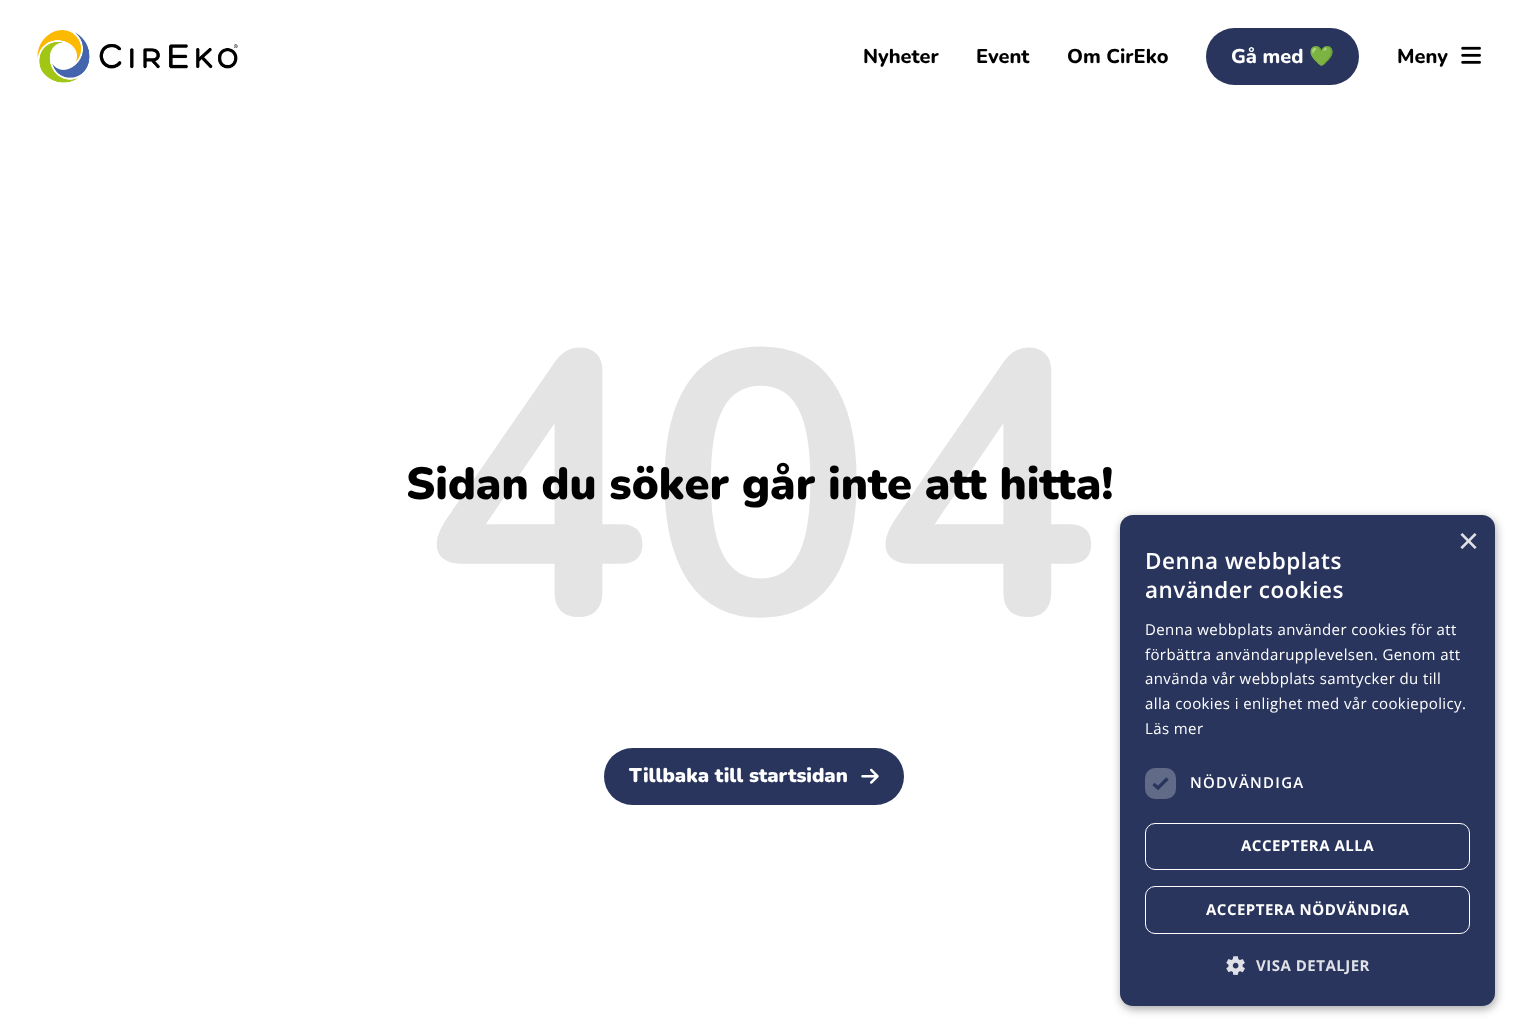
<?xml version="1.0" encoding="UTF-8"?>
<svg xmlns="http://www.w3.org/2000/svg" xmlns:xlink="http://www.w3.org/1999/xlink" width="1519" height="1031">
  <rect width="100%" height="100%" fill="#ffffff" />
  <image x="37" y="30" width="201" height="53" xlink:href="image1.png" />
  <rect x="1206" y="28" width="153" height="57" rx="28.5" fill="#29355d" />
  <image x="1461" y="46" width="20" height="18" xlink:href="image2.png" />
  <rect x="604" y="748" width="300" height="57" rx="28.5" fill="#29355d" />
  <image x="861" y="768" width="18" height="16" xlink:href="image3.png" />
  <rect x="1121" y="518" width="375" height="491" rx="13" fill="#000000" fill-opacity="0.35" filter="blur(5px)" />
  <rect x="1120" y="515" width="375" height="491" rx="13" fill="#29355d" />
  <rect x="1145" y="768" width="31" height="31" rx="10" fill="#616a87" />
  <path d="M 1153.5 784 l 4.5 4 l 9.5 -9.5" fill="none" stroke="#29355d" stroke-width="3.3" />
  <rect x="1145.5" y="823.5" width="324" height="46" rx="9.5" fill="none" stroke="#ffffff" />
  <rect x="1145.5" y="886.5" width="324" height="47" rx="9.5" fill="none" stroke="#ffffff" />
  <image x="1226" y="956" width="19" height="19" xlink:href="image4.png" />
  <text x="863" y="63" style="font-family: Nunito; font-size: 20px; font-weight: 800; fill: #000000">Nyheter</text>
  <text x="976" y="63" style="font-family: Nunito; font-size: 20px; font-weight: 800; fill: #000000">Event</text>
  <text x="1067" y="63" style="font-family: Nunito; font-size: 20px; font-weight: 800; fill: #000000">Om CirEko</text>
  <text x="1231" y="63" style="font-family: Nunito; font-size: 20px; font-weight: 800; fill: #ffffff">Gå med</text>
  <text x="1309" y="63" style="font-family: Noto Color Emoji; font-size: 20px; font-weight: bold; fill: #ffffff">💚</text>
  <text x="1397" y="63" style="font-family: Nunito; font-size: 20px; font-weight: 800; fill: #000000">Meny</text>
  <text x="424" y="614" style="font-family: Nunito; font-size: 374px; font-weight: bold; fill: #e5e4e4">404</text>
  <text x="406" y="499" style="font-family: Nunito; font-size: 45px; font-weight: 900; fill: #000000">Sidan du söker går inte att hitta!</text>
  <text x="629" y="782" style="font-family: Nunito; font-size: 20px; font-weight: 900; fill: #ffffff">Tillbaka till startsidan</text>
  <text x="1458" y="553" style="font-family: Liberation Sans; font-size: 36px; fill: #dfe1e7">×</text>
  <text x="1145" y="569" style="font-family: Open Sans; font-size: 22.5px; font-weight: 600; letter-spacing: 0.5px; fill: #ffffff">Denna webbplats</text>
  <text x="1145" y="598" style="font-family: Open Sans; font-size: 22.5px; font-weight: 600; letter-spacing: 0.5px; fill: #ffffff">använder cookies</text>
  <text x="1145" y="635" style="font-family: Open Sans; font-size: 15px; letter-spacing: 0.4px; fill: #ffffff">Denna webbplats använder cookies för att</text>
  <text x="1145" y="660" style="font-family: Open Sans; font-size: 15px; letter-spacing: 0.4px; fill: #ffffff">förbättra användarupplevelsen. Genom att</text>
  <text x="1145" y="684" style="font-family: Open Sans; font-size: 15px; letter-spacing: 0.4px; fill: #ffffff">använda vår webbplats samtycker du till</text>
  <text x="1145" y="709" style="font-family: Open Sans; font-size: 15px; letter-spacing: 0.4px; fill: #ffffff">alla cookies i enlighet med vår cookiepolicy.</text>
  <text x="1145" y="734" style="font-family: Open Sans; font-size: 15px; letter-spacing: 0.4px; fill: #ffffff">Läs mer</text>
  <text x="1190" y="788" style="font-family: Open Sans; font-size: 15px; font-weight: 600; letter-spacing: 1.25px; fill: #ffffff">NÖDVÄNDIGA</text>
  <text x="1241" y="851" style="font-family: Open Sans; font-size: 15px; font-weight: bold; letter-spacing: 0.5px; fill: #ffffff">ACCEPTERA ALLA</text>
  <text x="1206" y="915" style="font-family: Open Sans; font-size: 15px; font-weight: bold; letter-spacing: 0.5px; fill: #ffffff">ACCEPTERA NÖDVÄNDIGA</text>
  <text x="1256" y="971" style="font-family: Open Sans; font-size: 15px; font-weight: bold; letter-spacing: 0.5px; fill: #dfe1e7">VISA DETALJER</text>
</svg>
